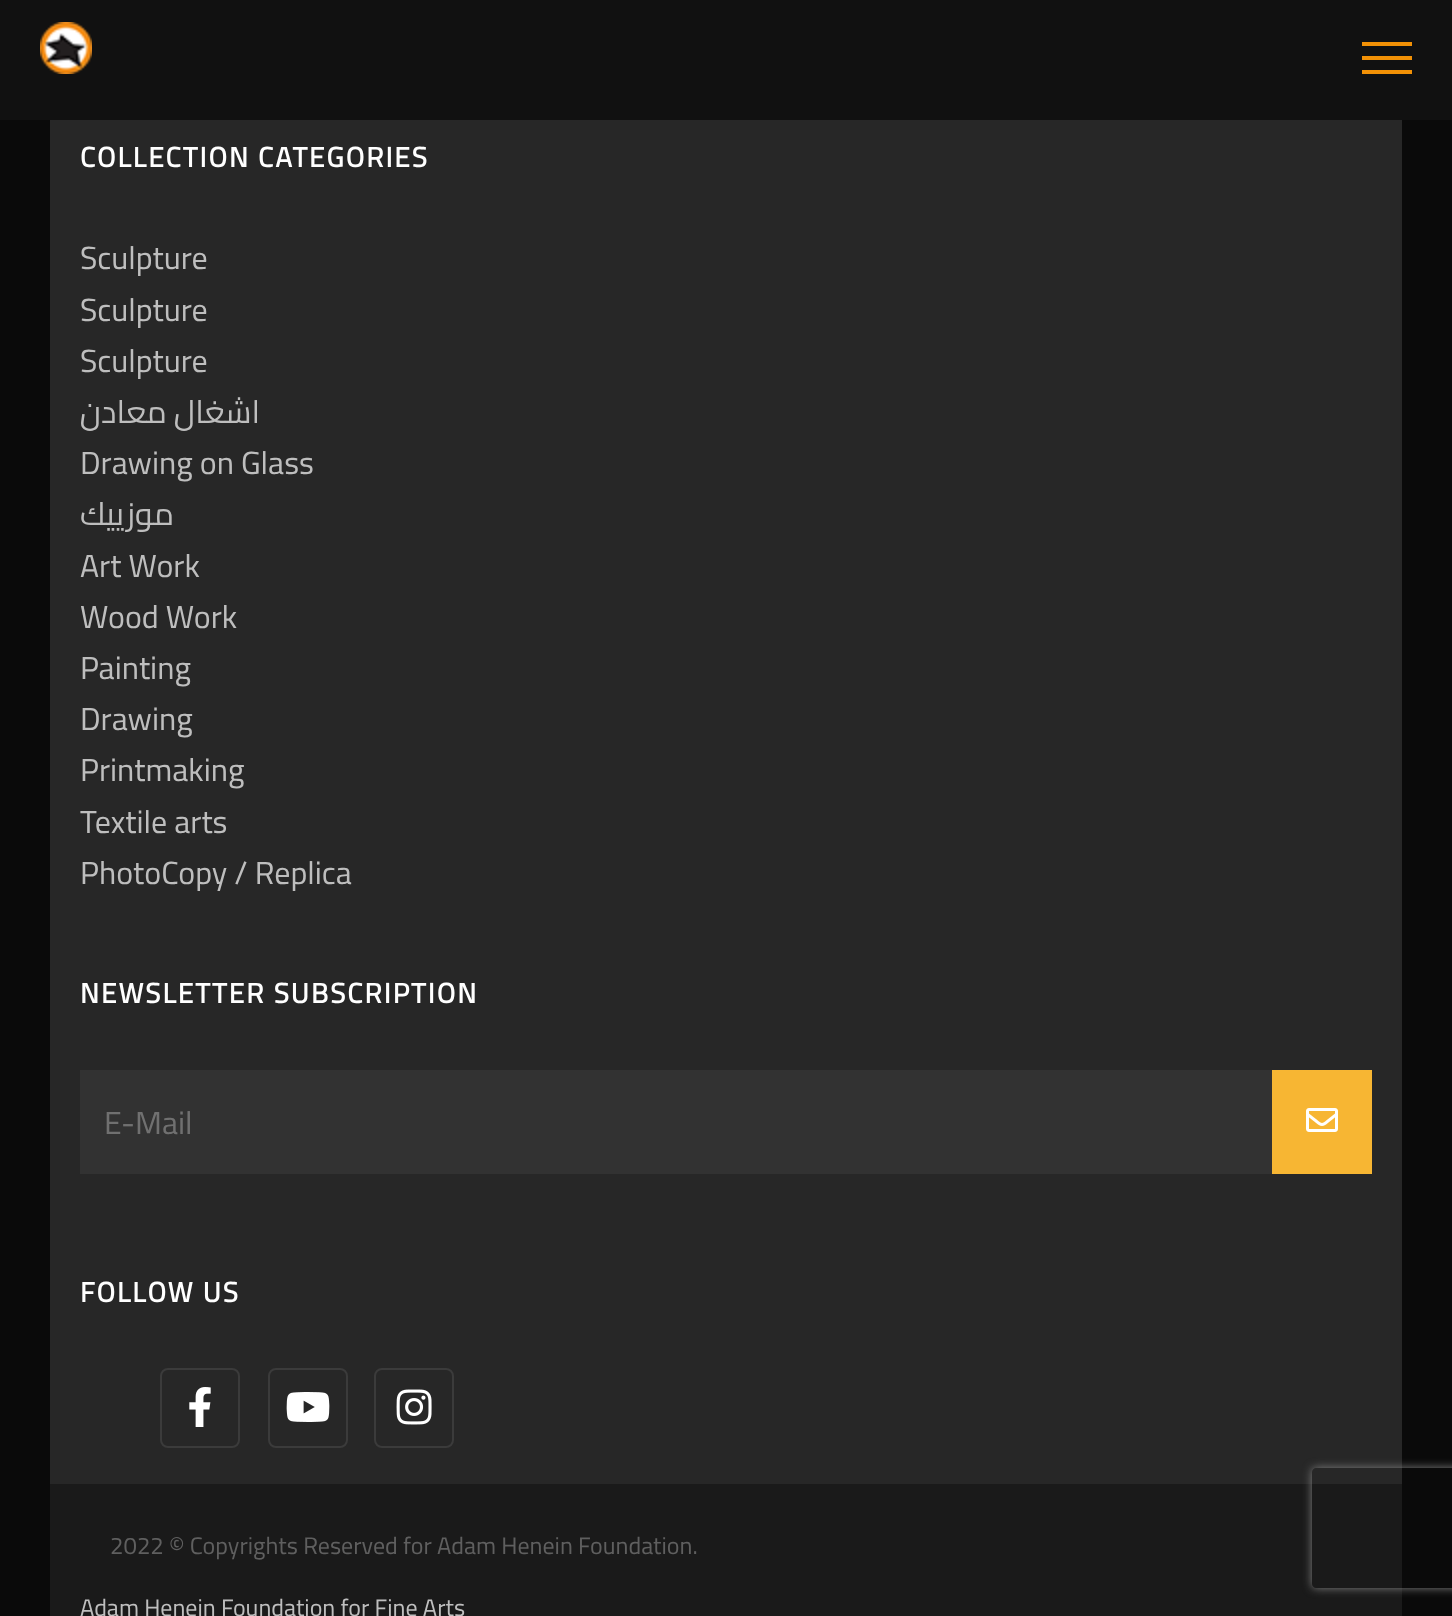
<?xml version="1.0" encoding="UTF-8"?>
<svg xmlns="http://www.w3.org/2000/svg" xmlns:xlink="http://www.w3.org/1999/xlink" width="1452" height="1616">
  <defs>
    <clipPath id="clip1"><path d="M 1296 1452 h 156 v 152 h -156 z m 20 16 h 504 c 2 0 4 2 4 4 v 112 c 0 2 -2 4 -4 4 h -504 c -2 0 -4 -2 -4 -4 v -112 c 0 -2 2 -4 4 -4 z" clip-rule="evenodd" /></clipPath>
  </defs>
  <rect width="100%" height="100%" fill="#0a0a0a" />
  <rect width="1452" height="120" fill="#111111" />
  <image x="40" y="22" width="52" height="52" xlink:href="image1.png" />
  <rect x="1362" y="56" width="50" height="4" fill="#f29106" />
  <rect x="1362" y="42" width="50" height="4" fill="#f29106" />
  <rect x="1362" y="70" width="50" height="4" fill="#f29106" />
  <rect x="50" y="120" width="1352" height="1364" fill="#272727" />
  <rect x="80" y="1070" width="1192" height="104" fill="#323232" />
  <rect x="1272" y="1070" width="100" height="104" fill="#f7b633" />
  <image x="1306" y="1108" width="32" height="24" xlink:href="image2.png" />
  <rect x="161" y="1369" width="78" height="78" rx="7" fill="none" stroke="#3b3b3b" stroke-width="2" />
  <image x="189" y="1387" width="22" height="40" xlink:href="image3.png" />
  <rect x="269" y="1369" width="78" height="78" rx="7" fill="none" stroke="#3b3b3b" stroke-width="2" />
  <image x="286" y="1392" width="44" height="30" xlink:href="image4.png" />
  <rect x="375" y="1369" width="78" height="78" rx="7" fill="none" stroke="#3b3b3b" stroke-width="2" />
  <image x="396" y="1389" width="36" height="36" xlink:href="image5.png" />
  <rect x="50" y="1484" width="1352" height="132" fill="#1a1a1a" />
  <g clip-path="url(#clip1)">
    <rect x="1312" y="1468" width="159" height="120" rx="4" fill="#808080" filter="blur(5px)" />
  </g>
  <text x="80" y="167" style="font-family: Cairo; font-size: 28px; font-weight: bold; letter-spacing: 2px; fill: #ffffff">COLLECTION CATEGORIES</text>
  <text x="80" y="269" style="font-family: Cairo; font-size: 32px; fill: #bebebe">Sculpture</text>
  <text x="80" y="321" style="font-family: Cairo; font-size: 32px; fill: #bebebe">Sculpture</text>
  <text x="80" y="372" style="font-family: Cairo; font-size: 32px; fill: #bebebe">Sculpture</text>
  <text x="260" y="423" style="font-family: Cairo; font-size: 32px; direction: rtl; fill: #bebebe">اشغال معادن</text>
  <text x="80" y="474" style="font-family: Cairo; font-size: 32px; fill: #bebebe">Drawing on Glass</text>
  <text x="174" y="525" style="font-family: Cairo; font-size: 32px; direction: rtl; fill: #bebebe">موزييك</text>
  <text x="80" y="577" style="font-family: Cairo; font-size: 32px; fill: #bebebe">Art Work</text>
  <text x="80" y="628" style="font-family: Cairo; font-size: 32px; fill: #bebebe">Wood Work</text>
  <text x="80" y="679" style="font-family: Cairo; font-size: 32px; fill: #bebebe">Painting</text>
  <text x="80" y="730" style="font-family: Cairo; font-size: 32px; fill: #bebebe">Drawing</text>
  <text x="80" y="781" style="font-family: Cairo; font-size: 32px; fill: #bebebe">Printmaking</text>
  <text x="80" y="833" style="font-family: Cairo; font-size: 32px; fill: #bebebe">Textile arts</text>
  <text x="80" y="884" style="font-family: Cairo; font-size: 32px; fill: #bebebe">PhotoCopy / Replica</text>
  <text x="80" y="1003" style="font-family: Cairo; font-size: 28px; font-weight: bold; letter-spacing: 2px; fill: #ffffff">NEWSLETTER SUBSCRIPTION</text>
  <text x="104" y="1134" style="font-family: Cairo; font-size: 32px; fill: #707070">E-Mail</text>
  <text x="80" y="1302" style="font-family: Cairo; font-size: 28px; font-weight: bold; letter-spacing: 2px; fill: #ffffff">FOLLOW US</text>
  <text x="110" y="1554" style="font-family: Cairo; font-size: 24px; fill: #5f5f5f">2022 © Copyrights Reserved for Adam Henein Foundation.</text>
  <text x="80" y="1616" style="font-family: Cairo; font-size: 24px; fill: #bebebe">Adam Henein Foundation for Fine Arts</text>
</svg>
